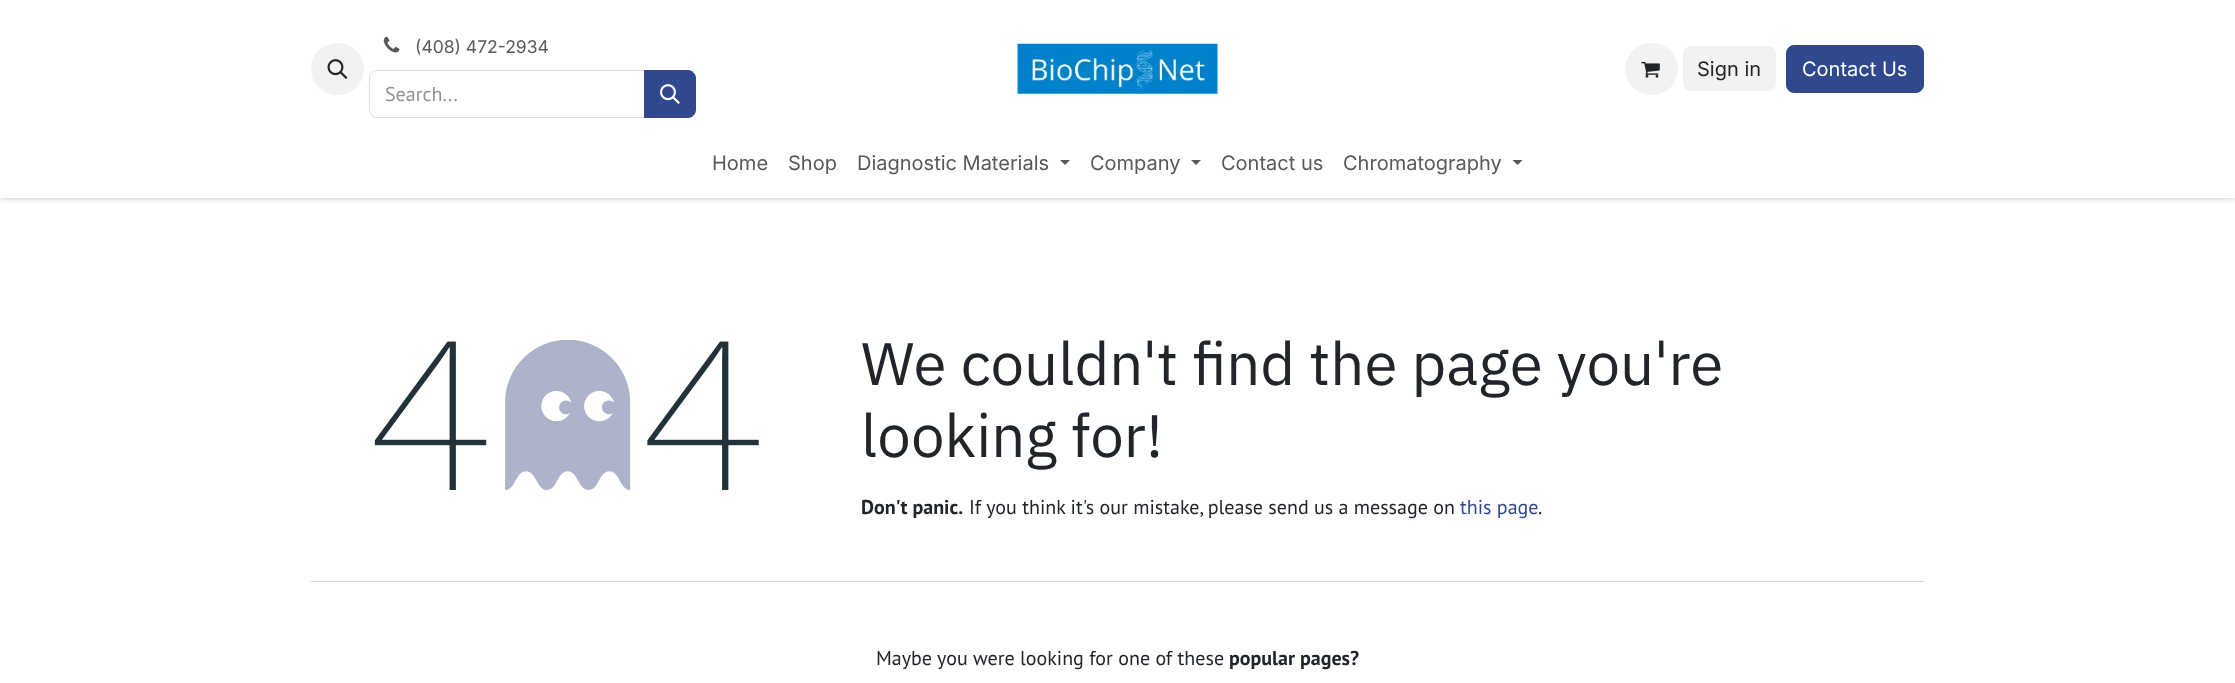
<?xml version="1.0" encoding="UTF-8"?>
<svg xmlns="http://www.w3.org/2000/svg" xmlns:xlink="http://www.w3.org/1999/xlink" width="2235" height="683">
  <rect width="100%" height="100%" fill="#ffffff" />
  <rect width="2235" height="198" fill="#000000" fill-opacity="0.25" filter="blur(3px)" />
  <rect width="2235" height="198" fill="#ffffff" />
  <rect x="311" y="43" width="53" height="52" rx="26" fill="#f2f2f2" />
  <image x="327" y="59" width="21" height="20" xlink:href="image1.png" />
  <image x="383" y="36" width="17" height="17" xlink:href="image2.png" />
  <path d="M 377 70.5 h 267.5 v 47 h -267.5 c -4 0 -7.5 -3.5 -7.5 -7.5 v -32 c 0 -4 3.5 -7.5 7.5 -7.5 z" fill="none" stroke="#dededf" />
  <path d="M 644.5 70.5 h 43.5 c 4 0 7.5 3.5 7.5 7.5 v 32 c 0 4 -3.5 7.5 -7.5 7.5 h -43.5 z" fill="#30488d" stroke="#30488d" />
  <image x="660" y="84" width="20" height="20" xlink:href="image3.png" />
  <image x="1017" y="43" width="201" height="51" xlink:href="image4.png" />
  <rect x="1625" y="43" width="53" height="52" rx="26" fill="#f2f2f2" />
  <image x="1641" y="61" width="19" height="17" xlink:href="image5.png" />
  <rect x="1683" y="46" width="93" height="45" rx="8" fill="#f2f2f2" />
  <rect x="1786.5" y="45.5" width="137" height="47" rx="7.5" fill="#30488d" stroke="#30488d" />
  <path d="M 1060 160 h 10 l -5 5 z" fill="#595959" />
  <path d="M 1191 160 h 10 l -5 5 z" fill="#595959" />
  <path d="M 1512.5 160 h 10 l -5 5 z" fill="#595959" />
  <image x="374" y="340" width="385" height="150" xlink:href="image6.png" />
  <rect x="311" y="581" width="1613" height="1" fill="#ced4da" />
  <text x="415" y="53" style="font-family: Inter; font-size: 17.5px; fill: #595959">(408) 472-2934</text>
  <text x="385" y="101" style="font-family: PT Sans; font-size: 20px; fill: #909294">Search...</text>
  <text x="1697" y="76" style="font-family: Inter; font-size: 20px; fill: #212529">Sign in</text>
  <text x="1802" y="76" style="font-family: Inter; font-size: 20px; fill: #ffffff">Contact Us</text>
  <text x="712" y="170" style="font-family: Inter; font-size: 20px; fill: #595959">Home</text>
  <text x="788" y="170" style="font-family: Inter; font-size: 20px; fill: #595959">Shop</text>
  <text x="857" y="170" style="font-family: Inter; font-size: 20px; fill: #595959">Diagnostic Materials</text>
  <text x="1090" y="170" style="font-family: Inter; font-size: 20px; fill: #595959">Company</text>
  <text x="1221" y="170" style="font-family: Inter; font-size: 20px; fill: #595959">Contact us</text>
  <text x="1343" y="170" style="font-family: Inter; font-size: 20px; fill: #595959">Chromatography</text>
  <text x="861" y="385" style="font-family: IBM Plex Sans; font-size: 60px; fill: #212529">We couldn't find the page you're</text>
  <text x="861" y="457" style="font-family: IBM Plex Sans; font-size: 60px; fill: #212529">looking for!</text>
  <text x="861" y="514" style="font-family: PT Sans; font-size: 20px; font-weight: bold; fill: #212529">Don't panic.</text>
  <text x="969" y="514" style="font-family: PT Sans; font-size: 20px; fill: #212529">If you think it's our mistake, please send us a message on</text>
  <text x="1460" y="514" style="font-family: PT Sans; font-size: 20px; fill: #30488d">this page</text>
  <text x="1538" y="514" style="font-family: PT Sans; font-size: 20px; fill: #212529">.</text>
  <text x="876" y="665" style="font-family: PT Sans; font-size: 20px; fill: #212529">Maybe you were looking for one of these</text>
  <text x="1229" y="665" style="font-family: PT Sans; font-size: 20px; font-weight: bold; fill: #212529">popular pages?</text>
</svg>
